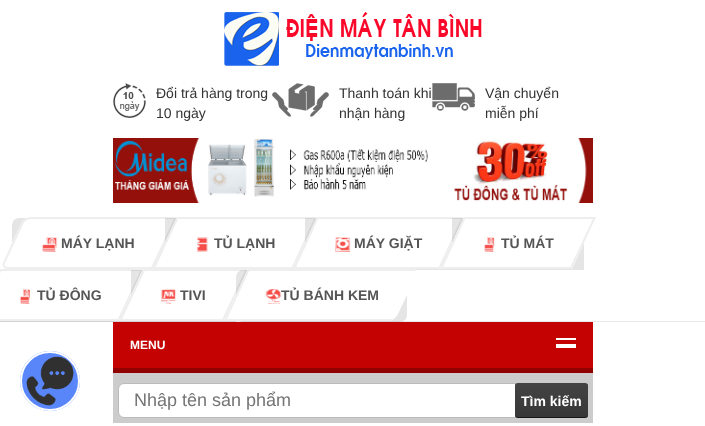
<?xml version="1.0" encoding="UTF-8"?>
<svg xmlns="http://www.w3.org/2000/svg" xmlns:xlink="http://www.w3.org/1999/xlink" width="705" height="426">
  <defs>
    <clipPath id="clip1"><rect x="515" y="383" width="73" height="35" rx="3" /></clipPath>
    <linearGradient id="g1" gradientUnits="userSpaceOnUse" x1="515" y1="384" x2="515" y2="417"><stop offset="0" stop-color="#434343" /><stop offset="1" stop-color="#373737" /></linearGradient>
  </defs>
  <rect width="100%" height="100%" fill="#ffffff" />
  <image x="224" y="12" width="258" height="54" xlink:href="image1.png" />
  <image x="113" y="83" width="33" height="35" xlink:href="image2.png" />
  <image x="272" y="83" width="57" height="34" xlink:href="image3.png" />
  <image x="432" y="83" width="43" height="28" xlink:href="image4.png" />
  <image x="113" y="138" width="480" height="65" xlink:href="image5.png" />
  <rect x="12" y="218" width="153" height="52" rx="7" fill="#000000" fill-opacity="0.1" filter="blur(0.5px)" />
  <path d="M 31 217 h 146 l -24 52 h -146 c -4 0 -6 -3 -4 -7 l 18 -38 c 2 -4 6 -7 10 -7 z" fill="#ffffff" />
  <path d="M 31 218 h 144.5 l -23.5 50 h -144.5 c -3.5 0 -5 -2.5 -3 -6 l 17.5 -38 c 1.5 -3.5 5.5 -6 9 -6 z" fill="none" stroke="#eeeeee" stroke-width="2" />
  <image x="42" y="237" width="16" height="15" xlink:href="image6.png" />
  <rect x="165" y="218" width="140" height="52" fill="#000000" fill-opacity="0.1" filter="blur(0.5px)" />
  <path d="M 177 217 h 140 l -24 52 h -140 z" fill="#ffffff" />
  <path d="M 177.5 218 h 138 l -23 50 h -138.5 z" fill="none" stroke="#eeeeee" stroke-width="2" />
  <image x="197" y="237" width="12" height="15" xlink:href="image7.png" />
  <rect x="305" y="218" width="147" height="52" fill="#000000" fill-opacity="0.1" filter="blur(0.5px)" />
  <path d="M 317 217 h 147 l -24 52 h -147 z" fill="#ffffff" />
  <path d="M 317.5 218 h 145 l -23 50 h -145 z" fill="none" stroke="#eeeeee" stroke-width="2" />
  <image x="335" y="237" width="16" height="15" xlink:href="image8.png" />
  <rect x="452" y="218" width="132" height="52" fill="#000000" fill-opacity="0.1" filter="blur(0.5px)" />
  <path d="M 464 217 h 132 l -24 52 h -132 z" fill="#ffffff" />
  <path d="M 464.5 218 h 130 l -23.5 50 h -129.5 z" fill="none" stroke="#eeeeee" stroke-width="2" />
  <image x="484" y="237" width="11" height="15" xlink:href="image9.png" />
  <rect y="321" width="705" height="1" fill="#eaeaea" />
  <rect x="-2" y="270" width="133" height="52" fill="#000000" fill-opacity="0.1" filter="blur(0.5px)" />
  <path d="M 0 269 h 143 l -24 52 h -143 z" fill="#ffffff" />
  <path d="M 0.5 270 h 141.5 l -23.5 50 h -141.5 z" fill="none" stroke="#eeeeee" stroke-width="2" />
  <image x="19" y="289" width="11" height="15" xlink:href="image10.png" />
  <rect x="131" y="270" width="105" height="52" fill="#000000" fill-opacity="0.1" filter="blur(0.5px)" />
  <path d="M 143 269 h 105 l -24 52 h -105 z" fill="#ffffff" />
  <path d="M 144 270 h 102.5 l -23.5 50 h -102.5 z" fill="none" stroke="#eeeeee" stroke-width="2" />
  <image x="160" y="289" width="16" height="15" xlink:href="image11.png" />
  <rect x="236" y="270" width="171" height="52" rx="7" fill="#000000" fill-opacity="0.1" filter="blur(0.5px)" />
  <path d="M 248 269 h 164 c 4 0 6 3 4 7 l -18 38 c -2 4 -6 7 -10 7 h -164 z" fill="#ffffff" />
  <path d="M 248 269 h 168 l -1 2 h -168 z" fill="#eeeeee" />
  <path d="M 225 319 h 167 l -1 2 h -167 z" fill="#eeeeee" />
  <path d="M 248 269 h 2 l -24 52 h -2 z" fill="#eeeeee" />
  <image x="265" y="289" width="16" height="15" xlink:href="image12.png" />
  <circle cx="50" cy="381" r="30" fill="#5a88fc" />
  <image x="26" y="356" width="48" height="50" xlink:href="image13.png" />
  <circle cx="50" cy="381" r="29" fill="none" stroke="#ffffff" stroke-width="2" />
  <rect x="113" y="373" width="480" height="50" fill="#cccccc" />
  <rect x="113" y="368" width="480" height="5" fill="#910100" />
  <rect x="113" y="322" width="480" height="46" fill="#c30201" />
  <rect x="556" y="338" width="20" height="2" fill="#ffffff" />
  <rect x="556" y="344" width="20" height="4" fill="#ffffff" />
  <rect x="118.5" y="383.5" width="469" height="34" rx="5.5" fill="#ffffff" stroke="#bbbbbb" />
  <g clip-path="url(#clip1)">
    <rect x="515" y="384" width="73" height="33" fill="url(#g1)" />
  </g>
  <path d="M 518 383 c -2 0 -3 1 -3 3 c 0 -1 1 -2 3 -2 h 67 c 2 0 3 1 3 2 c 0 -2 -1 -3 -3 -3 z" fill="#434343" />
  <path d="M 585 418 c 2 0 3 -1 3 -3 c 0 1 -1 2 -3 2 h -67 c -2 0 -3 -1 -3 -2 c 0 2 1 3 3 3 z" fill="#161616" />
  <text x="156" y="98" style="font-family: Liberation Sans; font-size: 14px; fill: #333333">Đổi trả hàng trong</text>
  <text x="156" y="118" style="font-family: Liberation Sans; font-size: 14px; fill: #333333">10 ngày</text>
  <text x="339" y="98" style="font-family: Liberation Sans; font-size: 14px; fill: #333333">Thanh toán khi</text>
  <text x="339" y="118" style="font-family: Liberation Sans; font-size: 14px; fill: #333333">nhận hàng</text>
  <text x="485" y="98" style="font-family: Liberation Sans; font-size: 14px; fill: #333333">Vận chuyển</text>
  <text x="485" y="118" style="font-family: Liberation Sans; font-size: 14px; fill: #333333">miễn phí</text>
  <text x="61" y="248" style="font-family: Liberation Sans; font-size: 14px; font-weight: bold; fill: #555555">MÁY LẠNH</text>
  <text x="214" y="248" style="font-family: Liberation Sans; font-size: 14px; font-weight: bold; fill: #555555">TỦ LẠNH</text>
  <text x="354" y="248" style="font-family: Liberation Sans; font-size: 14px; font-weight: bold; fill: #555555">MÁY GIẶT</text>
  <text x="501" y="248" style="font-family: Liberation Sans; font-size: 14px; font-weight: bold; fill: #555555">TỦ MÁT</text>
  <text x="37" y="300" style="font-family: Liberation Sans; font-size: 14px; font-weight: bold; fill: #555555">TỦ ĐÔNG</text>
  <text x="180" y="300" style="font-family: Liberation Sans; font-size: 14px; font-weight: bold; fill: #555555">TIVI</text>
  <text x="281" y="300" style="font-family: Liberation Sans; font-size: 14px; font-weight: bold; fill: #555555">TỦ BÁNH KEM</text>
  <text x="130" y="349" style="font-family: Liberation Sans; font-size: 12px; font-weight: bold; fill: #ffffff">MENU</text>
  <text x="134" y="406" style="font-family: Liberation Sans; font-size: 18px; fill: #757575">Nhập tên sản phẩm</text>
  <text x="521" y="406" style="font-family: Liberation Sans; font-size: 14px; font-weight: bold; fill: #ffffff">Tìm kiếm</text>
</svg>
